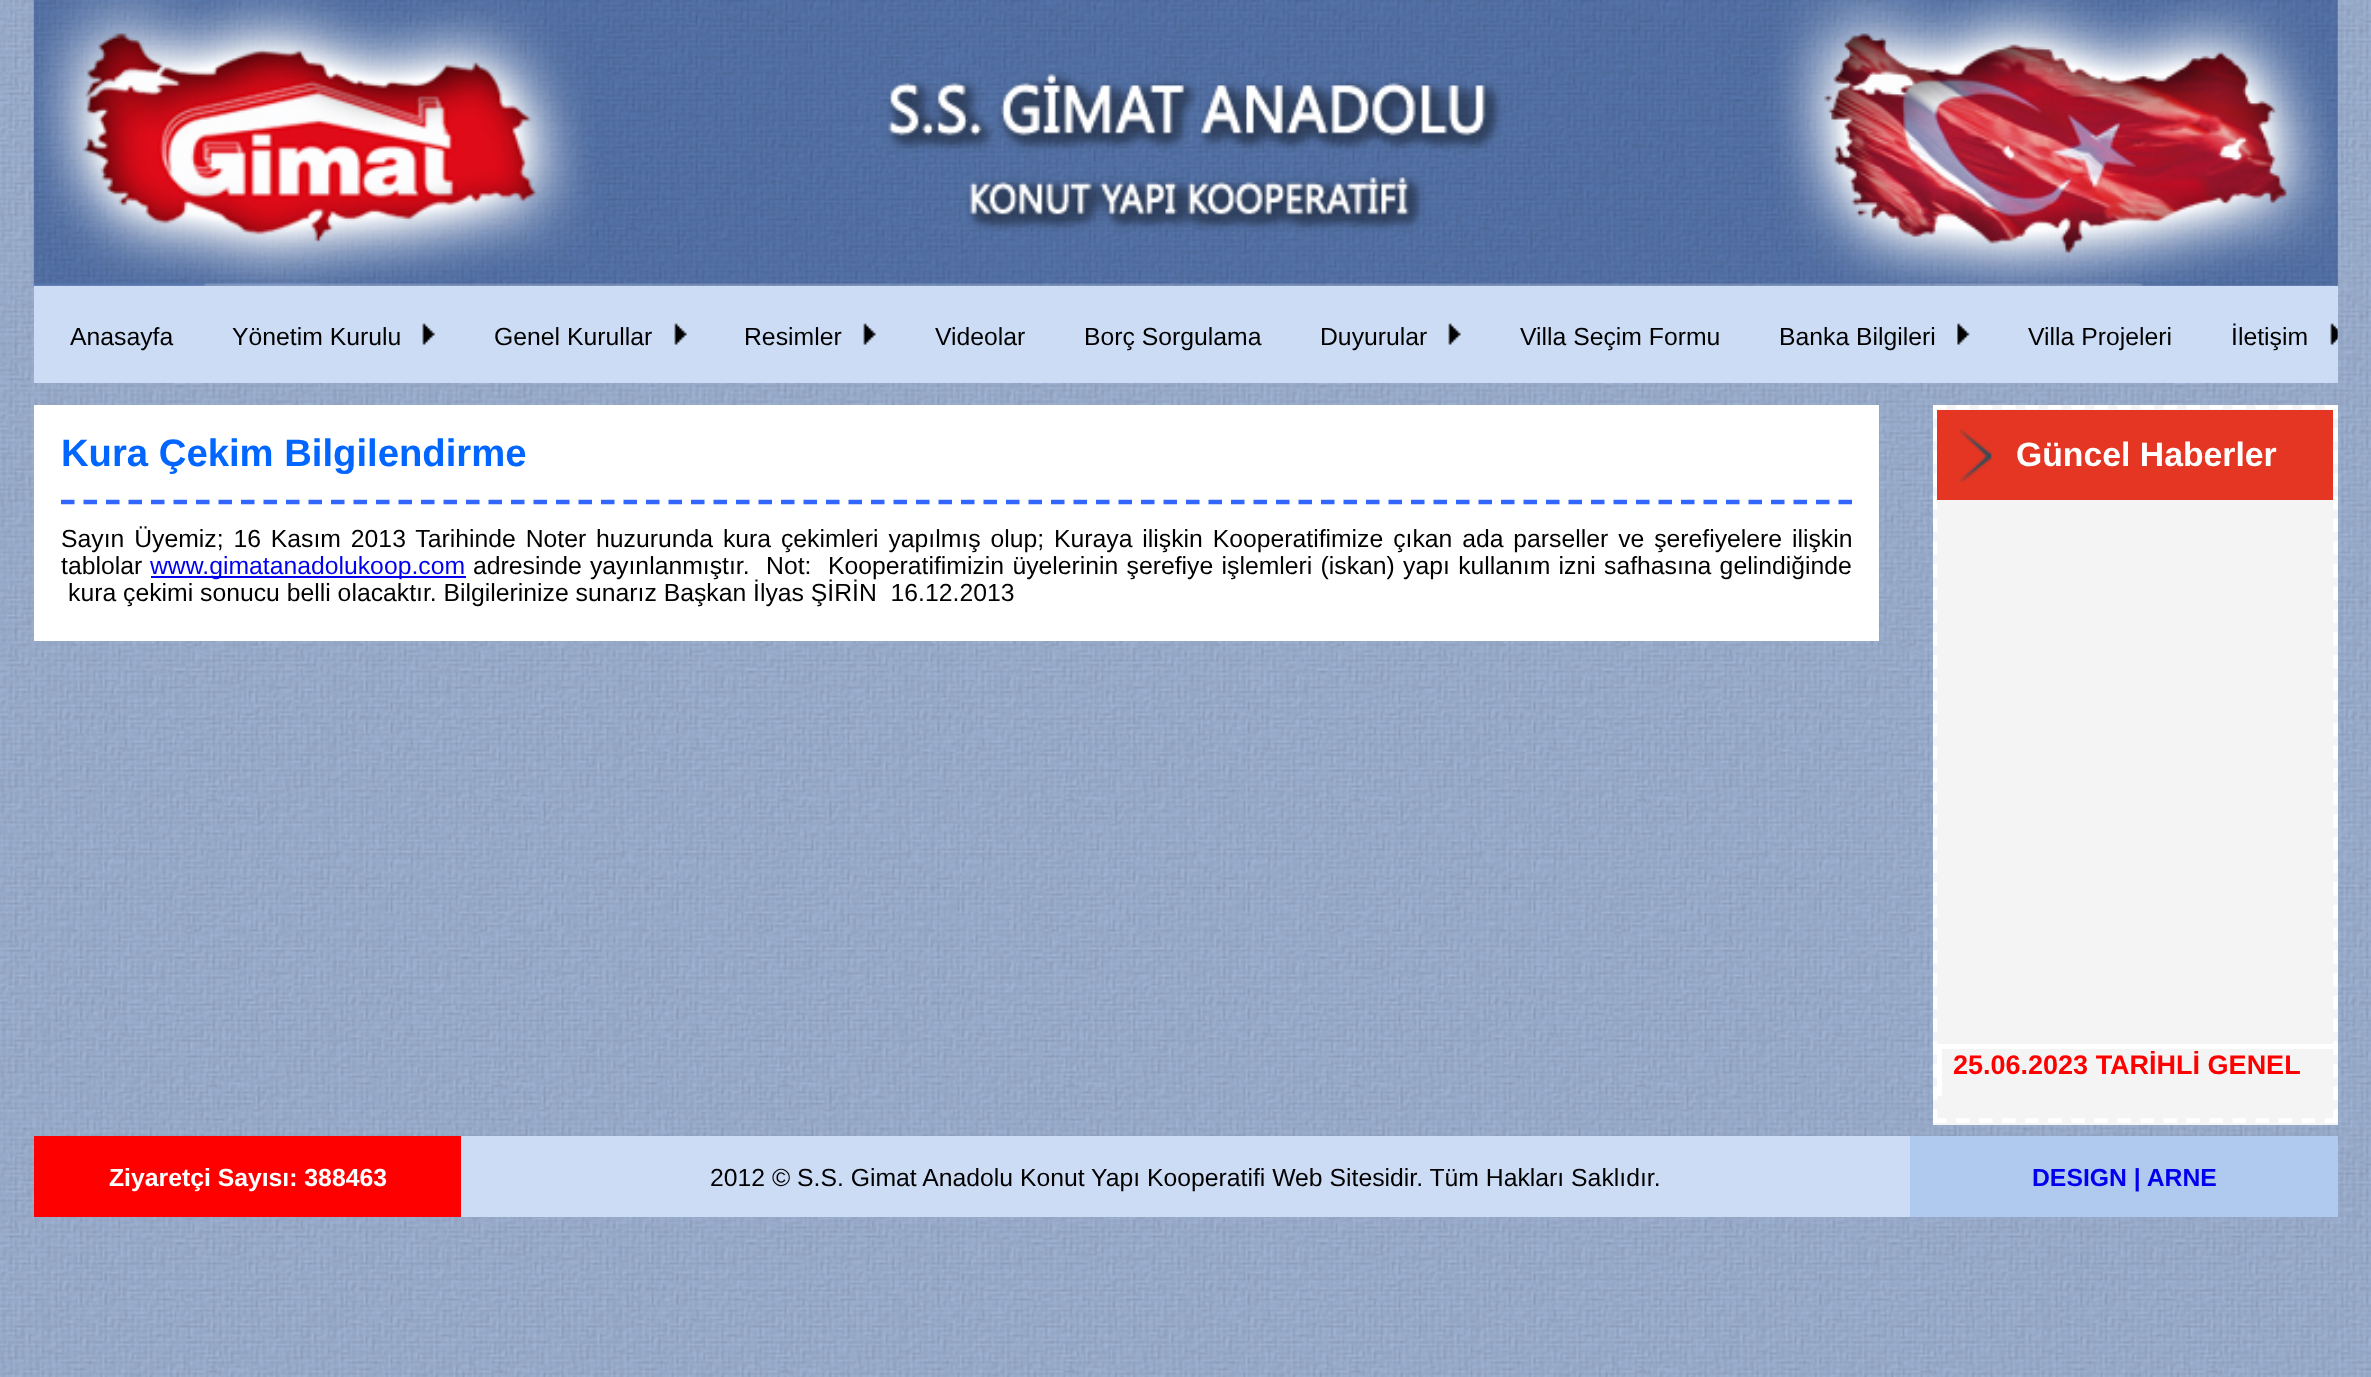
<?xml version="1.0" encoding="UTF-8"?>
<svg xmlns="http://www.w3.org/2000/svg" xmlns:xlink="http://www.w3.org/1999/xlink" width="2371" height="1377">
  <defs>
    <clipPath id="clip1"><rect x="1933" y="405" width="405" height="720" /></clipPath>
  </defs>
  <rect width="100%" height="100%" fill="#ffffff" />
  <image x="0" y="0" width="2371" height="1377" xlink:href="image1.png" />
  <image x="33" y="0" width="2305" height="286" xlink:href="image2.png" />
  <rect x="34" y="286" width="2304" height="97" fill="#ccdcf5" />
  <image x="422" y="323" width="13" height="22" xlink:href="image3.png" />
  <image x="674" y="323" width="13" height="22" xlink:href="image4.png" />
  <image x="863" y="323" width="13" height="22" xlink:href="image4.png" />
  <image x="1448" y="323" width="13" height="22" xlink:href="image4.png" />
  <image x="1957" y="323" width="13" height="22" xlink:href="image5.png" />
  <image x="2330" y="323" width="8" height="22" xlink:href="image6.png" />
  <rect x="34" y="405" width="1845" height="236" fill="#ffffff" />
  <path d="M 61 502 h 1791" fill="none" stroke="#3366ff" stroke-width="4.5" stroke-dasharray="13.5 9" />
  <rect x="151" y="576" width="315" height="2" fill="#0000ee" />
  <rect x="1933" y="405" width="405" height="720" fill="#f4f4f4" />
  <g clip-path="url(#clip1)">
    <path d="M 1933 407 h 405" fill="none" stroke="#ffffff" stroke-width="4.5" stroke-dasharray="13.5 9.54" />
  </g>
  <path d="M 2335.5 405 v 718" fill="none" stroke="#ffffff" stroke-width="4.5" stroke-dasharray="13.5 9.22" />
  <path d="M 1933 1120.5 h 405" fill="none" stroke="#ffffff" stroke-width="4.5" stroke-dasharray="13.5 9.54" />
  <g clip-path="url(#clip1)">
    <path d="M 1935 405 v 718" fill="none" stroke="#ffffff" stroke-width="4.5" stroke-dasharray="13.5 9.22" />
  </g>
  <rect x="1937" y="410" width="396" height="90" fill="#e43623" />
  <image x="1959" y="429" width="33" height="53" xlink:href="image7.png" />
  <rect x="1937" y="1044" width="396" height="52" fill="#ffffff" />
  <rect x="1942" y="1049" width="391" height="47" fill="#f4f4f4" />
  <rect x="461" y="1136" width="1449" height="81" fill="#ccdcf5" />
  <rect x="34" y="1136" width="427" height="81" fill="#ff0000" />
  <rect x="1910" y="1136" width="428" height="81" fill="#afc9ef" />
  <text x="70" y="345" style="font-family: Liberation Sans; font-size: 24.75px; fill: #000000">Anasayfa</text>
  <text x="232" y="345" style="font-family: Liberation Sans; font-size: 24.75px; fill: #000000">Yönetim Kurulu</text>
  <text x="494" y="345" style="font-family: Liberation Sans; font-size: 24.75px; fill: #000000">Genel Kurullar</text>
  <text x="744" y="345" style="font-family: Liberation Sans; font-size: 24.75px; fill: #000000">Resimler</text>
  <text x="935" y="345" style="font-family: Liberation Sans; font-size: 24.75px; fill: #000000">Videolar</text>
  <text x="1084" y="345" style="font-family: Liberation Sans; font-size: 24.75px; fill: #000000">Borç Sorgulama</text>
  <text x="1320" y="345" style="font-family: Liberation Sans; font-size: 24.75px; fill: #000000">Duyurular</text>
  <text x="1520" y="345" style="font-family: Liberation Sans; font-size: 24.75px; fill: #000000">Villa Seçim Formu</text>
  <text x="1779" y="345" style="font-family: Liberation Sans; font-size: 24.75px; fill: #000000">Banka Bilgileri</text>
  <text x="2028" y="345" style="font-family: Liberation Sans; font-size: 24.75px; fill: #000000">Villa Projeleri</text>
  <text x="2231" y="345" style="font-family: Liberation Sans; font-size: 24.75px; fill: #000000">İletişim</text>
  <text x="61" y="466" style="font-family: Liberation Sans; font-size: 38.25px; font-weight: bold; fill: #0066ff">Kura Çekim Bilgilendirme</text>
  <text x="61" y="547" word-spacing="3" style="font-family: Liberation Sans; font-size: 24.75px; fill: #000000">Sayın Üyemiz; 16 Kasım 2013 Tarihinde Noter huzurunda kura çekimleri yapılmış olup; Kuraya ilişkin Kooperatifimize çıkan ada parseller ve şerefiyelere ilişkin</text>
  <text x="61" y="574" style="font-family: Liberation Sans; font-size: 24.75px; fill: #000000">tablolar</text>
  <text x="150" y="574" style="font-family: Liberation Sans; font-size: 24.75px; fill: #0000ee">www.gimatanadolukoop.com</text>
  <text x="473" y="574" word-spacing="1.4" style="font-family: Liberation Sans; font-size: 24.75px; fill: #000000" xml:space="preserve">adresinde yayınlanmıştır.  Not:  Kooperatifimizin üyelerinin şerefiye işlemleri (iskan) yapı kullanım izni safhasına gelindiğinde</text>
  <text x="68" y="601" style="font-family: Liberation Sans; font-size: 24.75px; fill: #000000" xml:space="preserve">kura çekimi sonucu belli olacaktır. Bilgilerinize sunarız Başkan İlyas ŞİRİN  16.12.2013</text>
  <text x="2016" y="466" style="font-family: Liberation Sans; font-size: 33.75px; font-weight: bold; fill: #ffffff">Güncel Haberler</text>
  <text x="1953" y="1074" style="font-family: Liberation Sans; font-size: 27px; font-weight: bold; fill: #ff0000">25.06.2023 TARİHLİ GENEL</text>
  <text x="109" y="1186" style="font-family: Liberation Sans; font-size: 24.75px; font-weight: bold; fill: #ffffff">Ziyaretçi Sayısı: 388463</text>
  <text x="710" y="1186" style="font-family: Liberation Sans; font-size: 24.75px; fill: #000000">2012 © S.S. Gimat Anadolu Konut Yapı Kooperatifi Web Sitesidir. Tüm Hakları Saklıdır.</text>
  <text x="2032" y="1186" style="font-family: Liberation Sans; font-size: 24.75px; font-weight: bold; fill: #0000ee">DESIGN | ARNE</text>
</svg>
